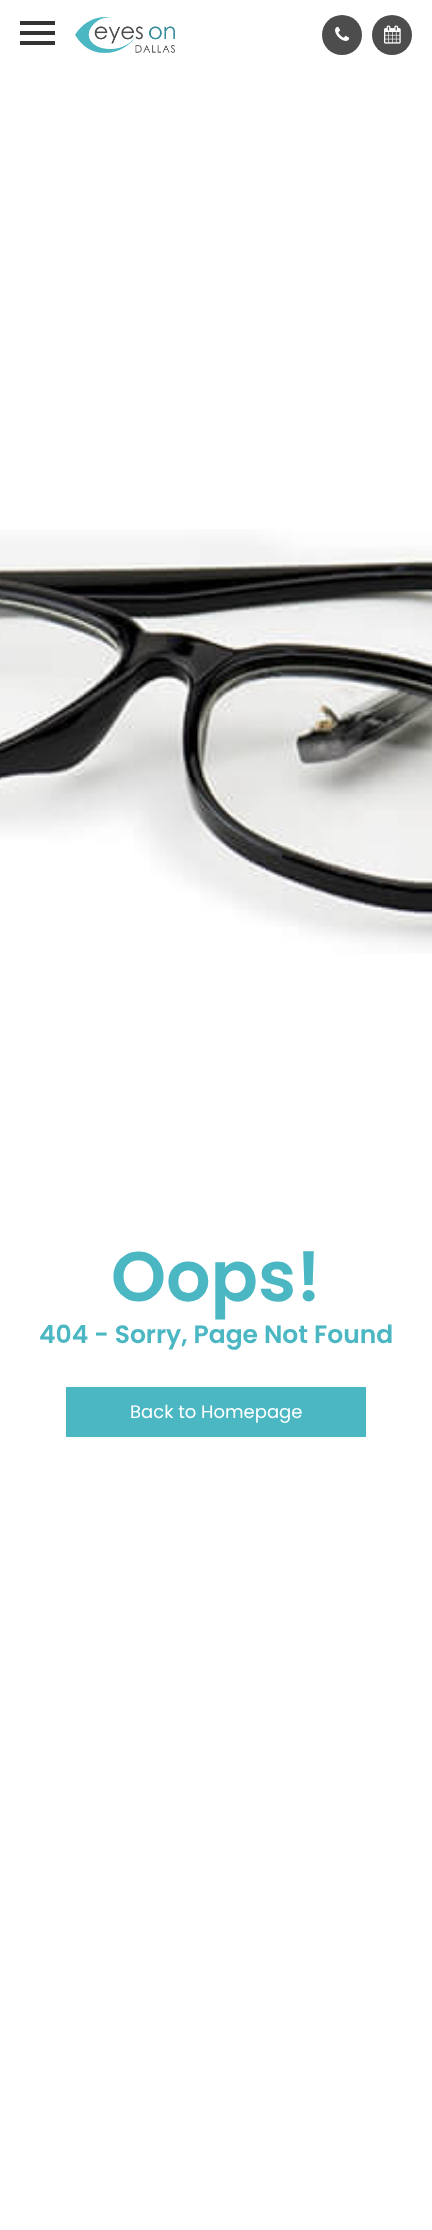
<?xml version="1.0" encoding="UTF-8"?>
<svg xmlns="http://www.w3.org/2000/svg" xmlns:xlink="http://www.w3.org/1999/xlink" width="432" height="2230">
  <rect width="100%" height="100%" fill="#ffffff" />
  <rect x="20" y="41" width="35" height="4" fill="#333333" />
  <rect x="20" y="21" width="35" height="4" fill="#333333" />
  <rect x="20" y="31" width="35" height="4" fill="#333333" />
  <image x="75" y="17" width="100" height="36" xlink:href="image1.png" />
  <circle cx="342" cy="35" r="20" fill="#4d4d4d" />
  <image x="335" y="26" width="15" height="15" xlink:href="image2.png" />
  <circle cx="392" cy="35" r="20" fill="#4d4d4d" />
  <image x="384" y="25" width="17" height="19" xlink:href="image3.png" />
  <image x="0" y="529" width="432" height="425" xlink:href="image4.png" />
  <rect x="66" y="1387" width="300" height="50" fill="#4ab7c3" />
  <text x="111" y="1301" style="font-family: Poppins; font-size: 70px; font-weight: 600; fill: #4ab7c3">Oops!</text>
  <text x="39" y="1343" style="font-family: Poppins; font-size: 25px; font-weight: 600; fill: #4ab7c3">404 - Sorry, Page Not Found</text>
  <text x="130" y="1418" style="font-family: Poppins; font-size: 18px; fill: #ffffff">Back to Homepage</text>
</svg>
